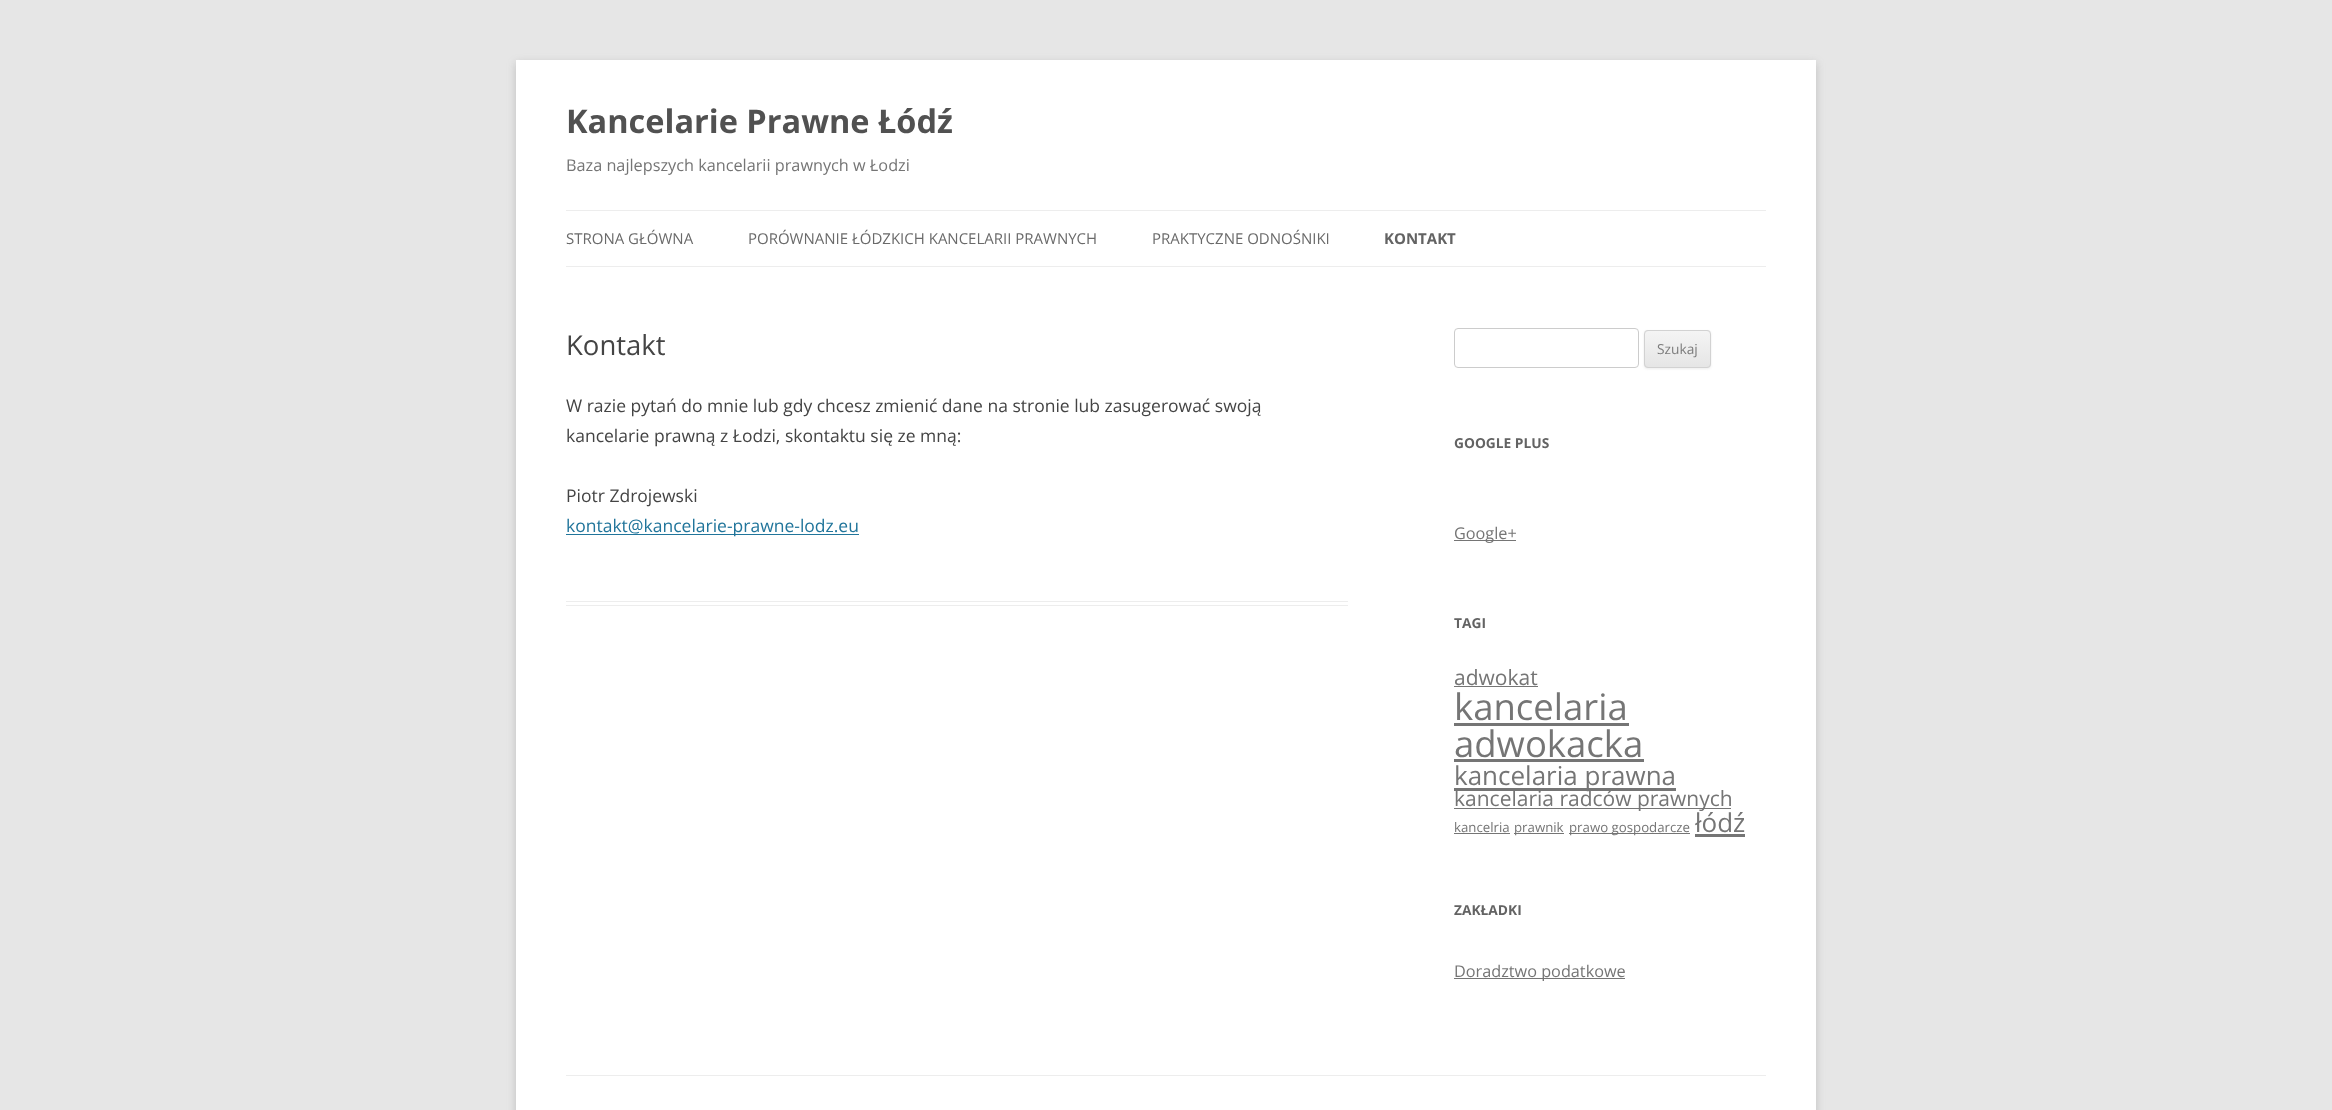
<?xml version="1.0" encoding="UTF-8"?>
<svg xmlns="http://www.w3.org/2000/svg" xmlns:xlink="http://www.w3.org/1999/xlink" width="2332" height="1110">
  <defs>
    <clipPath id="clip1"><rect x="1644" y="330" width="67" height="38" rx="4" /></clipPath>
    <linearGradient id="g1" gradientUnits="userSpaceOnUse" x1="1678" y1="331" x2="1678" y2="366"><stop offset="0" stop-color="#f4f4f4" /><stop offset="1" stop-color="#e6e6e6" /></linearGradient>
  </defs>
  <rect width="100%" height="100%" fill="#e6e6e6" />
  <rect x="516" y="63" width="1300" height="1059" fill="#646464" fill-opacity="0.3" filter="blur(4px)" />
  <rect x="516" y="60" width="1300" height="1050" fill="#ffffff" />
  <rect x="566" y="210" width="1200" height="1" fill="#ededed" />
  <rect x="566" y="266" width="1200" height="1" fill="#ededed" />
  <rect x="566" y="601" width="782" height="1" fill="#ededed" />
  <rect x="566" y="605" width="782" height="1" fill="#ededed" />
  <rect x="566" y="534" width="293" height="1" fill="#21759b" />
  <rect x="1454.5" y="328.5" width="184" height="39" rx="3.5" fill="none" stroke="#cccccc" />
  <rect x="1644" y="331" width="67" height="38" rx="4" fill="#404040" fill-opacity="0.1" filter="blur(1px)" />
  <rect x="1644" y="330" width="67" height="38" rx="4" fill="#e6e6e6" />
  <g clip-path="url(#clip1)">
    <rect x="1644" y="331" width="67" height="35" fill="url(#g1)" />
  </g>
  <rect x="1644.5" y="330.5" width="66" height="37" rx="3.5" fill="none" stroke="#d2d2d2" />
  <rect x="1454" y="540" width="62" height="1" fill="#757575" />
  <rect x="1454" y="686" width="84" height="1" fill="#757575" />
  <rect x="1454" y="723" width="175" height="3" fill="#757575" />
  <rect x="1454" y="759" width="190" height="3" fill="#757575" />
  <rect x="1454" y="788" width="222" height="3" fill="#757575" />
  <rect x="1454" y="808" width="277" height="1" fill="#757575" />
  <rect x="1454" y="833" width="56" height="1" fill="#757575" />
  <rect x="1514" y="833" width="50" height="1" fill="#757575" />
  <rect x="1569" y="833" width="121" height="1" fill="#757575" />
  <rect x="1695" y="834" width="50" height="3" fill="#757575" />
  <rect x="1454" y="978" width="171" height="1" fill="#757575" />
  <rect x="566" y="1075" width="1200" height="1" fill="#ededed" />
  <text x="566" y="133" style="font-family: Open Sans; font-size: 32.5px; font-weight: bold; fill: #515151">Kancelarie Prawne Łódź</text>
  <text x="566" y="171" style="font-family: Open Sans; font-size: 16.25px; fill: #757575">Baza najlepszych kancelarii prawnych w Łodzi</text>
  <text x="566" y="244" style="font-family: Open Sans; font-size: 15px; fill: #6a6a6a">STRONA GŁÓWNA</text>
  <text x="748" y="244" style="font-family: Open Sans; font-size: 15px; fill: #6a6a6a">PORÓWNANIE ŁÓDZKICH KANCELARII PRAWNYCH</text>
  <text x="1152" y="244" style="font-family: Open Sans; font-size: 15px; fill: #6a6a6a">PRAKTYCZNE ODNOŚNIKI</text>
  <text x="1384" y="244" style="font-family: Open Sans; font-size: 15px; font-weight: bold; fill: #636363">KONTAKT</text>
  <text x="566" y="355" style="font-family: Open Sans; font-size: 27.5px; fill: #444444">Kontakt</text>
  <text x="566" y="412" style="font-family: Open Sans; font-size: 17.5px; fill: #444444">W razie pytań do mnie lub gdy chcesz zmienić dane na stronie lub zasugerować swoją</text>
  <text x="566" y="442" style="font-family: Open Sans; font-size: 17.5px; fill: #444444">kancelarie prawną z Łodzi, skontaktu się ze mną:</text>
  <text x="566" y="502" style="font-family: Open Sans; font-size: 17.5px; fill: #444444">Piotr Zdrojewski</text>
  <text x="566" y="532" style="font-family: Open Sans; font-size: 17.5px; fill: #21759b">kontakt@kancelarie-prawne-lodz.eu</text>
  <text x="1657" y="354" style="font-family: Open Sans; font-size: 13.75px; fill: #7c7c7c">Szukaj</text>
  <text x="1454" y="448" style="font-family: Open Sans; font-size: 13.75px; font-weight: bold; fill: #636363">GOOGLE PLUS</text>
  <text x="1454" y="539" style="font-family: Open Sans; font-size: 16.25px; fill: #757575">Google+</text>
  <text x="1454" y="628" style="font-family: Open Sans; font-size: 13.75px; font-weight: bold; fill: #636363">TAGI</text>
  <text x="1454" y="685" style="font-family: Open Sans; font-size: 21px; fill: #757575">adwokat</text>
  <text x="1454" y="720" style="font-family: Open Sans; font-size: 36.5px; fill: #757575">kancelaria</text>
  <text x="1454" y="757" style="font-family: Open Sans; font-size: 36.5px; fill: #757575">adwokacka</text>
  <text x="1454" y="785" style="font-family: Open Sans; font-size: 26px; fill: #757575">kancelaria prawna</text>
  <text x="1454" y="806" style="font-family: Open Sans; font-size: 21px; fill: #757575">kancelaria radców prawnych</text>
  <text x="1454" y="832" style="font-family: Open Sans; font-size: 13.25px; fill: #757575">kancelria</text>
  <text x="1514" y="832" style="font-family: Open Sans; font-size: 13.25px; fill: #757575">prawnik</text>
  <text x="1569" y="832" style="font-family: Open Sans; font-size: 13.25px; fill: #757575">prawo gospodarcze</text>
  <text x="1695" y="832" style="font-family: Open Sans; font-size: 26px; fill: #757575">łódź</text>
  <text x="1454" y="915" style="font-family: Open Sans; font-size: 13.75px; font-weight: bold; fill: #636363">ZAKŁADKI</text>
  <text x="1454" y="977" style="font-family: Open Sans; font-size: 16.25px; fill: #757575">Doradztwo podatkowe</text>
</svg>
